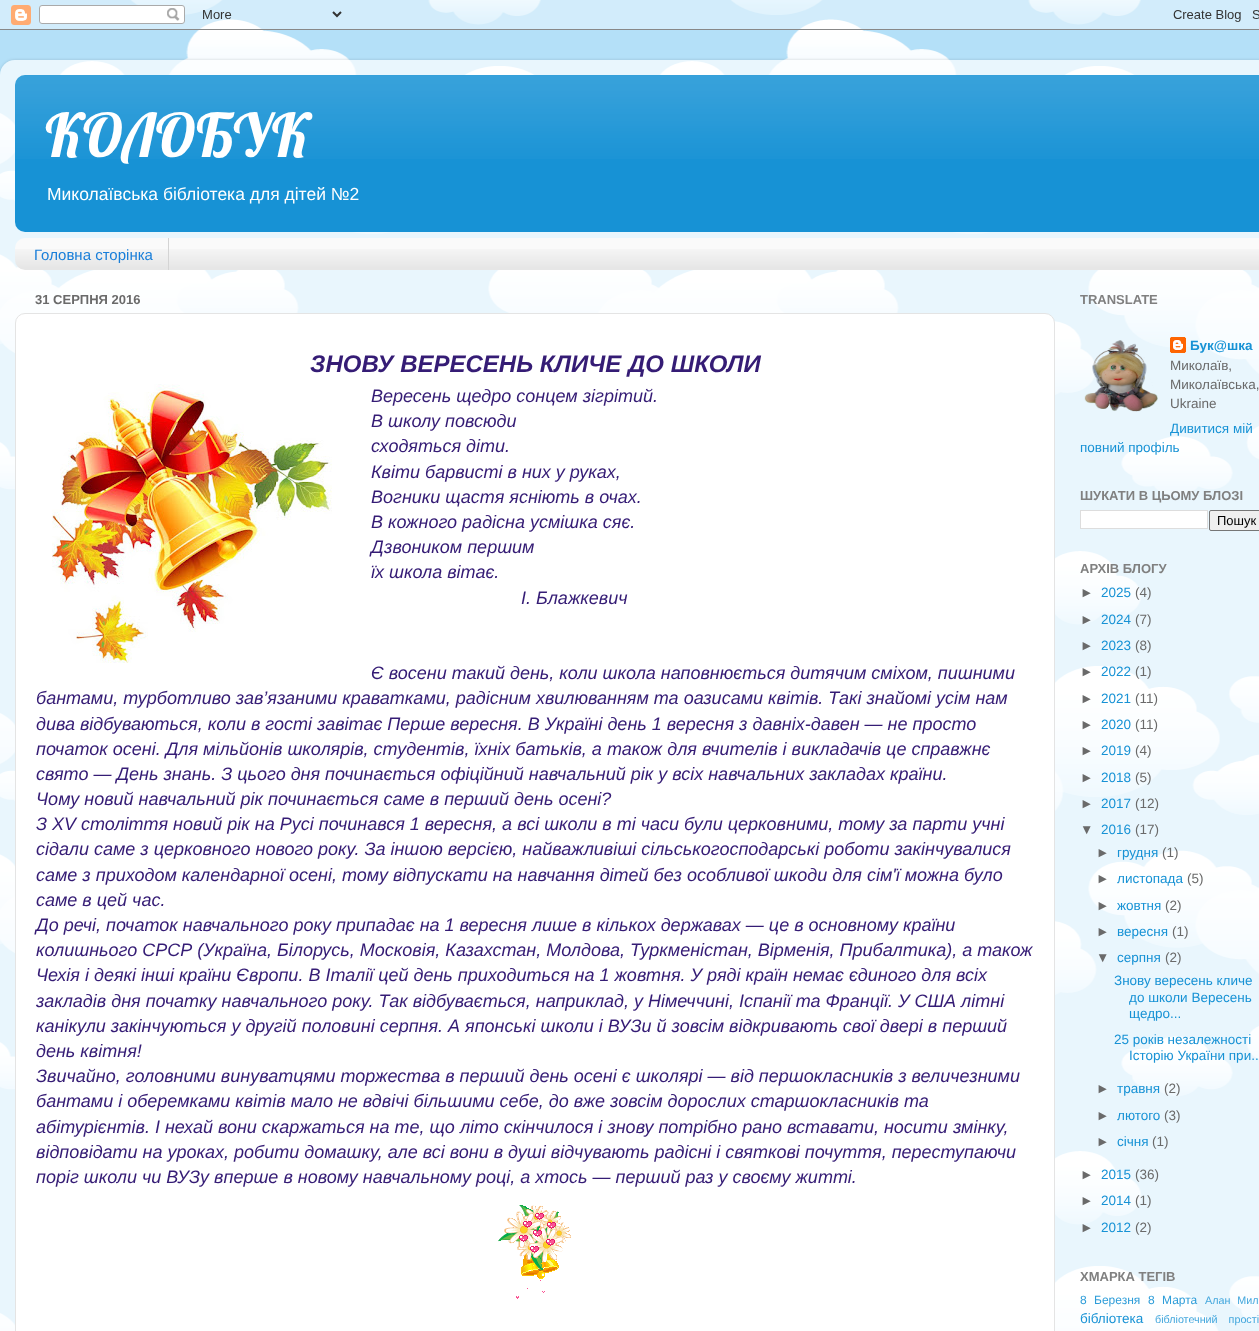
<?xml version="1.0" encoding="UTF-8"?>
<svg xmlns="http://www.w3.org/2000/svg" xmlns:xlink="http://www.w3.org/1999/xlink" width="1259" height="1331">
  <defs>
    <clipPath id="clip1"><path d="M 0 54 h 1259 v 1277 h -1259 z m 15 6 h 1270 c 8.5 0 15 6.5 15 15 v 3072 c 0 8.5 -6.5 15 -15 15 h -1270 c -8.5 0 -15 -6.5 -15 -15 v -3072 c 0 -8.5 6.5 -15 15 -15 z" clip-rule="evenodd" /></clipPath>
  </defs>
  <rect width="100%" height="100%" fill="#ffffff" />
  <image x="0" y="0" width="1259" height="1331" xlink:href="image1.png" />
  <image x="0" y="0" width="1259" height="30" xlink:href="image2.png" />
  <g clip-path="url(#clip1)">
    <rect y="60" width="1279" height="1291" rx="15" fill="#000000" fill-opacity="0.15" filter="blur(1.5px)" />
  </g>
  <image x="0" y="60" width="1259" height="1271" xlink:href="image3.png" />
  <rect x="15" y="75" width="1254" height="157" rx="10" fill="#1792d5" />
  <image x="15" y="75" width="1244" height="84" xlink:href="image4.png" />
  <rect x="15" y="238" width="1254" height="32" rx="10" fill="#fafafa" />
  <image x="15" y="249" width="1244" height="21" xlink:href="image5.png" />
  <rect x="168" y="238" width="1" height="32" fill="#d4d4d4" />
  <rect x="15.5" y="313.5" width="1039" height="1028" rx="9.5" fill="#ffffff" stroke="#e4e4e4" />
  <image x="52" y="384" width="280" height="279" xlink:href="image6.png" />
  <image x="498" y="1205" width="73" height="94" xlink:href="image7.png" />
  <image x="1084" y="340" width="74" height="72" xlink:href="image8.png" />
  <image x="1170" y="337" width="16" height="16" xlink:href="image9.png" />
  <rect x="1080.5" y="510.5" width="127" height="18" fill="#ffffff" stroke="#dddddd" />
  <rect x="1209.5" y="510.5" width="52" height="20" rx="1.5" fill="#efefef" stroke="#767676" />
  <text x="45" y="157" style="font-family: Lobster; font-size: 60px; fill: #ffffff">КОЛОБУК</text>
  <text x="47" y="200" style="font-family: Liberation Sans; font-size: 17.5px; fill: #ffffff">Миколаївська бібліотека для дітей №2</text>
  <text x="34" y="260" style="font-family: Liberation Sans; font-size: 15px; fill: #187ed9">Головна сторінка</text>
  <text x="35" y="304" style="font-family: Liberation Sans; font-size: 13px; font-weight: bold; fill: #6a6a6a">31 СЕРПНЯ 2016</text>
  <text x="310" y="372" style="font-family: Liberation Sans; font-size: 24px; font-weight: bold; font-style: italic; fill: #351c75">ЗНОВУ ВЕРЕСЕНЬ КЛИЧЕ ДО ШКОЛИ</text>
  <text x="371" y="402" style="font-family: Liberation Sans; font-size: 18px; font-style: italic; fill: #351c75">Вересень щедро сонцем зігрітий.</text>
  <text x="371" y="427" style="font-family: Liberation Sans; font-size: 18px; font-style: italic; fill: #351c75">В школу повсюди</text>
  <text x="371" y="452" style="font-family: Liberation Sans; font-size: 18px; font-style: italic; fill: #351c75">сходяться діти.</text>
  <text x="371" y="478" style="font-family: Liberation Sans; font-size: 18px; font-style: italic; fill: #351c75">Квіти барвисті в них у руках,</text>
  <text x="371" y="503" style="font-family: Liberation Sans; font-size: 18px; font-style: italic; fill: #351c75">Вогники щастя ясніють в очах.</text>
  <text x="371" y="528" style="font-family: Liberation Sans; font-size: 18px; font-style: italic; fill: #351c75">В кожного радісна усмішка сяє.</text>
  <text x="371" y="553" style="font-family: Liberation Sans; font-size: 18px; font-style: italic; fill: #351c75">Дзвоником першим</text>
  <text x="371" y="578" style="font-family: Liberation Sans; font-size: 18px; font-style: italic; fill: #351c75">їх школа вітає.</text>
  <text x="521" y="604" style="font-family: Liberation Sans; font-size: 18px; font-style: italic; fill: #351c75">І. Блажкевич</text>
  <text x="371" y="679" style="font-family: Liberation Sans; font-size: 18px; font-style: italic; fill: #351c75">Є восени такий день, коли школа наповнюється дитячим сміхом, пишними</text>
  <text x="36" y="704" style="font-family: Liberation Sans; font-size: 18px; font-style: italic; fill: #351c75">бантами, турботливо зав’язаними краватками, радісним хвилюванням та оазисами квітів. Такі знайомі усім нам</text>
  <text x="36" y="730" style="font-family: Liberation Sans; font-size: 18px; font-style: italic; fill: #351c75">дива відбуваються, коли в гості завітає Перше вересня. В Україні день 1 вересня з давніх-давен — не просто</text>
  <text x="36" y="755" style="font-family: Liberation Sans; font-size: 18px; font-style: italic; fill: #351c75">початок осені. Для мільйонів школярів, студентів, їхніх батьків, а також для вчителів і викладачів це справжнє</text>
  <text x="36" y="780" style="font-family: Liberation Sans; font-size: 18px; font-style: italic; fill: #351c75">свято — День знань. З цього дня починається офіційний навчальний рік у всіх навчальних закладах країни.</text>
  <text x="36" y="805" style="font-family: Liberation Sans; font-size: 18px; font-style: italic; fill: #351c75">Чому новий навчальний рік починається саме в перший день осені?</text>
  <text x="36" y="830" style="font-family: Liberation Sans; font-size: 18px; font-style: italic; fill: #351c75">З XV століття новий рік на Русі починався 1 вересня, а всі школи в ті часи були церковними, тому за парти учні</text>
  <text x="36" y="855" style="font-family: Liberation Sans; font-size: 18px; font-style: italic; fill: #351c75">сідали саме з церковного нового року. За іншою версією, найважливіші сільськогосподарські роботи закінчувалися</text>
  <text x="36" y="881" style="font-family: Liberation Sans; font-size: 18px; font-style: italic; fill: #351c75">саме з приходом календарної осені, тому відпускати на навчання дітей без особливої шкоди для сім'ї можна було</text>
  <text x="36" y="906" style="font-family: Liberation Sans; font-size: 18px; font-style: italic; fill: #351c75">саме в цей час.</text>
  <text x="36" y="931" style="font-family: Liberation Sans; font-size: 18px; font-style: italic; fill: #351c75">До речі, початок навчального року припадає на 1 вересня лише в кількох державах — це в основному країни</text>
  <text x="36" y="956" style="font-family: Liberation Sans; font-size: 18px; font-style: italic; fill: #351c75">колишнього СРСР (Україна, Білорусь, Московія, Казахстан, Молдова, Туркменістан, Вірменія, Прибалтика), а також</text>
  <text x="36" y="981" style="font-family: Liberation Sans; font-size: 18px; font-style: italic; fill: #351c75">Чехія і деякі інші країни Європи. В Італії цей день приходиться на 1 жовтня. У ряді країн немає єдиного для всіх</text>
  <text x="36" y="1007" style="font-family: Liberation Sans; font-size: 18px; font-style: italic; fill: #351c75">закладів дня початку навчального року. Так відбувається, наприклад, у Німеччині, Іспанії та Франції. У США літні</text>
  <text x="36" y="1032" style="font-family: Liberation Sans; font-size: 18px; font-style: italic; fill: #351c75">канікули закінчуються у другій половині серпня. А японські школи i ВУЗи й зовсім відкривають свої двері в перший</text>
  <text x="36" y="1057" style="font-family: Liberation Sans; font-size: 18px; font-style: italic; fill: #351c75">день квітня!</text>
  <text x="36" y="1082" style="font-family: Liberation Sans; font-size: 18px; font-style: italic; fill: #351c75">Звичайно, головними винуватцями торжества в перший день осені є школярі — від першокласників з величезними</text>
  <text x="36" y="1107" style="font-family: Liberation Sans; font-size: 18px; font-style: italic; fill: #351c75">бантами і оберемками квітів мало не вдвічі більшими себе, до вже зовсім дорослих старшокласників та</text>
  <text x="36" y="1133" style="font-family: Liberation Sans; font-size: 18px; font-style: italic; fill: #351c75">абітурієнтів. І нехай вони скаржаться на те, що літо скінчилося і знову потрібно рано вставати, носити змінку,</text>
  <text x="36" y="1158" style="font-family: Liberation Sans; font-size: 18px; font-style: italic; fill: #351c75">відповідати на уроках, робити домашку, але всі вони в душі відчувають радісні і святкові почуття, переступаючи</text>
  <text x="36" y="1183" style="font-family: Liberation Sans; font-size: 18px; font-style: italic; fill: #351c75">поріг школи чи ВУЗу вперше в новому навчальному році, а хтось — перший раз у своєму житті.</text>
  <text x="1080" y="304" style="font-family: Liberation Sans; font-size: 13px; font-weight: bold; fill: #808080">TRANSLATE</text>
  <text x="1190" y="350" style="font-family: Liberation Sans; font-size: 13.5px; font-weight: bold; fill: #1792d5">Бук@шка</text>
  <text x="1170" y="370" style="font-family: Liberation Sans; font-size: 13.5px; fill: #6a6a6a">Миколаїв,</text>
  <text x="1170" y="389" style="font-family: Liberation Sans; font-size: 13.5px; fill: #6a6a6a">Миколаївська,</text>
  <text x="1170" y="408" style="font-family: Liberation Sans; font-size: 13.5px; fill: #6a6a6a">Ukraine</text>
  <text x="1170" y="433" style="font-family: Liberation Sans; font-size: 13.5px; fill: #1792d5">Дивитися мій</text>
  <text x="1080" y="452" style="font-family: Liberation Sans; font-size: 13.5px; fill: #1792d5">повний профіль</text>
  <text x="1080" y="500" style="font-family: Liberation Sans; font-size: 13px; font-weight: bold; fill: #808080">ШУКАТИ В ЦЬОМУ БЛОЗІ</text>
  <text x="1217" y="525" style="font-family: Liberation Sans; font-size: 13px; fill: #000000">Пошук</text>
  <text x="1080" y="573" style="font-family: Liberation Sans; font-size: 13px; font-weight: bold; fill: #808080">АРХІВ БЛОГУ</text>
  <text x="1080" y="597" style="font-family: Liberation Sans; font-size: 13.5px; fill: #6a6a6a">►</text>
  <text x="1101" y="597" style="font-family: Liberation Sans; font-size: 13.5px; fill: #1792d5">2025</text>
  <text x="1135" y="597" style="font-family: Liberation Sans; font-size: 13.5px; fill: #6a6a6a">(4)</text>
  <text x="1080" y="624" style="font-family: Liberation Sans; font-size: 13.5px; fill: #6a6a6a">►</text>
  <text x="1101" y="624" style="font-family: Liberation Sans; font-size: 13.5px; fill: #1792d5">2024</text>
  <text x="1135" y="624" style="font-family: Liberation Sans; font-size: 13.5px; fill: #6a6a6a">(7)</text>
  <text x="1080" y="650" style="font-family: Liberation Sans; font-size: 13.5px; fill: #6a6a6a">►</text>
  <text x="1101" y="650" style="font-family: Liberation Sans; font-size: 13.5px; fill: #1792d5">2023</text>
  <text x="1135" y="650" style="font-family: Liberation Sans; font-size: 13.5px; fill: #6a6a6a">(8)</text>
  <text x="1080" y="676" style="font-family: Liberation Sans; font-size: 13.5px; fill: #6a6a6a">►</text>
  <text x="1101" y="676" style="font-family: Liberation Sans; font-size: 13.5px; fill: #1792d5">2022</text>
  <text x="1135" y="676" style="font-family: Liberation Sans; font-size: 13.5px; fill: #6a6a6a">(1)</text>
  <text x="1080" y="703" style="font-family: Liberation Sans; font-size: 13.5px; fill: #6a6a6a">►</text>
  <text x="1101" y="703" style="font-family: Liberation Sans; font-size: 13.5px; fill: #1792d5">2021</text>
  <text x="1135" y="703" style="font-family: Liberation Sans; font-size: 13.5px; fill: #6a6a6a">(11)</text>
  <text x="1080" y="729" style="font-family: Liberation Sans; font-size: 13.5px; fill: #6a6a6a">►</text>
  <text x="1101" y="729" style="font-family: Liberation Sans; font-size: 13.5px; fill: #1792d5">2020</text>
  <text x="1135" y="729" style="font-family: Liberation Sans; font-size: 13.5px; fill: #6a6a6a">(11)</text>
  <text x="1080" y="755" style="font-family: Liberation Sans; font-size: 13.5px; fill: #6a6a6a">►</text>
  <text x="1101" y="755" style="font-family: Liberation Sans; font-size: 13.5px; fill: #1792d5">2019</text>
  <text x="1135" y="755" style="font-family: Liberation Sans; font-size: 13.5px; fill: #6a6a6a">(4)</text>
  <text x="1080" y="782" style="font-family: Liberation Sans; font-size: 13.5px; fill: #6a6a6a">►</text>
  <text x="1101" y="782" style="font-family: Liberation Sans; font-size: 13.5px; fill: #1792d5">2018</text>
  <text x="1135" y="782" style="font-family: Liberation Sans; font-size: 13.5px; fill: #6a6a6a">(5)</text>
  <text x="1080" y="808" style="font-family: Liberation Sans; font-size: 13.5px; fill: #6a6a6a">►</text>
  <text x="1101" y="808" style="font-family: Liberation Sans; font-size: 13.5px; fill: #1792d5">2017</text>
  <text x="1135" y="808" style="font-family: Liberation Sans; font-size: 13.5px; fill: #6a6a6a">(12)</text>
  <text x="1080" y="834" style="font-family: Liberation Sans; font-size: 13.5px; fill: #6a6a6a">▼</text>
  <text x="1101" y="834" style="font-family: Liberation Sans; font-size: 13.5px; fill: #1792d5">2016</text>
  <text x="1135" y="834" style="font-family: Liberation Sans; font-size: 13.5px; fill: #6a6a6a">(17)</text>
  <text x="1096" y="857" style="font-family: Liberation Sans; font-size: 13.5px; fill: #6a6a6a">►</text>
  <text x="1117" y="857" style="font-family: Liberation Sans; font-size: 13.5px; fill: #1792d5">грудня</text>
  <text x="1162" y="857" style="font-family: Liberation Sans; font-size: 13.5px; fill: #6a6a6a">(1)</text>
  <text x="1096" y="883" style="font-family: Liberation Sans; font-size: 13.5px; fill: #6a6a6a">►</text>
  <text x="1117" y="883" style="font-family: Liberation Sans; font-size: 13.5px; fill: #1792d5">листопада</text>
  <text x="1187" y="883" style="font-family: Liberation Sans; font-size: 13.5px; fill: #6a6a6a">(5)</text>
  <text x="1096" y="910" style="font-family: Liberation Sans; font-size: 13.5px; fill: #6a6a6a">►</text>
  <text x="1117" y="910" style="font-family: Liberation Sans; font-size: 13.5px; fill: #1792d5">жовтня</text>
  <text x="1165" y="910" style="font-family: Liberation Sans; font-size: 13.5px; fill: #6a6a6a">(2)</text>
  <text x="1096" y="936" style="font-family: Liberation Sans; font-size: 13.5px; fill: #6a6a6a">►</text>
  <text x="1117" y="936" style="font-family: Liberation Sans; font-size: 13.5px; fill: #1792d5">вересня</text>
  <text x="1172" y="936" style="font-family: Liberation Sans; font-size: 13.5px; fill: #6a6a6a">(1)</text>
  <text x="1096" y="962" style="font-family: Liberation Sans; font-size: 13.5px; fill: #6a6a6a">▼</text>
  <text x="1117" y="962" style="font-family: Liberation Sans; font-size: 13.5px; fill: #1792d5">серпня</text>
  <text x="1165" y="962" style="font-family: Liberation Sans; font-size: 13.5px; fill: #6a6a6a">(2)</text>
  <text x="1114" y="985" style="font-family: Liberation Sans; font-size: 13.5px; fill: #1792d5">Знову вересень кличе</text>
  <text x="1129" y="1002" style="font-family: Liberation Sans; font-size: 13.5px; fill: #1792d5">до школи Вересень</text>
  <text x="1129" y="1018" style="font-family: Liberation Sans; font-size: 13.5px; fill: #1792d5">щедро...</text>
  <text x="1114" y="1044" style="font-family: Liberation Sans; font-size: 13.5px; fill: #1792d5">25 років незалежності</text>
  <text x="1129" y="1060" style="font-family: Liberation Sans; font-size: 13.5px; fill: #1792d5">Історію України при..</text>
  <text x="1096" y="1093" style="font-family: Liberation Sans; font-size: 13.5px; fill: #6a6a6a">►</text>
  <text x="1117" y="1093" style="font-family: Liberation Sans; font-size: 13.5px; fill: #1792d5">травня</text>
  <text x="1164" y="1093" style="font-family: Liberation Sans; font-size: 13.5px; fill: #6a6a6a">(2)</text>
  <text x="1096" y="1120" style="font-family: Liberation Sans; font-size: 13.5px; fill: #6a6a6a">►</text>
  <text x="1117" y="1120" style="font-family: Liberation Sans; font-size: 13.5px; fill: #1792d5">лютого</text>
  <text x="1164" y="1120" style="font-family: Liberation Sans; font-size: 13.5px; fill: #6a6a6a">(3)</text>
  <text x="1096" y="1146" style="font-family: Liberation Sans; font-size: 13.5px; fill: #6a6a6a">►</text>
  <text x="1117" y="1146" style="font-family: Liberation Sans; font-size: 13.5px; fill: #1792d5">січня</text>
  <text x="1152" y="1146" style="font-family: Liberation Sans; font-size: 13.5px; fill: #6a6a6a">(1)</text>
  <text x="1080" y="1179" style="font-family: Liberation Sans; font-size: 13.5px; fill: #6a6a6a">►</text>
  <text x="1101" y="1179" style="font-family: Liberation Sans; font-size: 13.5px; fill: #1792d5">2015</text>
  <text x="1135" y="1179" style="font-family: Liberation Sans; font-size: 13.5px; fill: #6a6a6a">(36)</text>
  <text x="1080" y="1205" style="font-family: Liberation Sans; font-size: 13.5px; fill: #6a6a6a">►</text>
  <text x="1101" y="1205" style="font-family: Liberation Sans; font-size: 13.5px; fill: #1792d5">2014</text>
  <text x="1135" y="1205" style="font-family: Liberation Sans; font-size: 13.5px; fill: #6a6a6a">(1)</text>
  <text x="1080" y="1232" style="font-family: Liberation Sans; font-size: 13.5px; fill: #6a6a6a">►</text>
  <text x="1101" y="1232" style="font-family: Liberation Sans; font-size: 13.5px; fill: #1792d5">2012</text>
  <text x="1135" y="1232" style="font-family: Liberation Sans; font-size: 13.5px; fill: #6a6a6a">(2)</text>
  <text x="1080" y="1281" style="font-family: Liberation Sans; font-size: 13px; font-weight: bold; fill: #808080">ХМАРКА ТЕГІВ</text>
  <text x="1080" y="1304" word-spacing="4" style="font-family: Liberation Sans; font-size: 12px; fill: #2e9dd9">8 Березня</text>
  <text x="1148" y="1304" word-spacing="4" style="font-family: Liberation Sans; font-size: 12px; fill: #2e9dd9">8 Марта</text>
  <text x="1205" y="1304" word-spacing="4" style="font-family: Liberation Sans; font-size: 10.75px; fill: #43a7dd">Алан Мил</text>
  <text x="1080" y="1323" style="font-family: Liberation Sans; font-size: 13.5px; fill: #1792d5">бібліотека</text>
  <text x="1155" y="1323" word-spacing="8" style="font-family: Liberation Sans; font-size: 10.75px; fill: #43a7dd">бібліотечний прості</text>
</svg>
